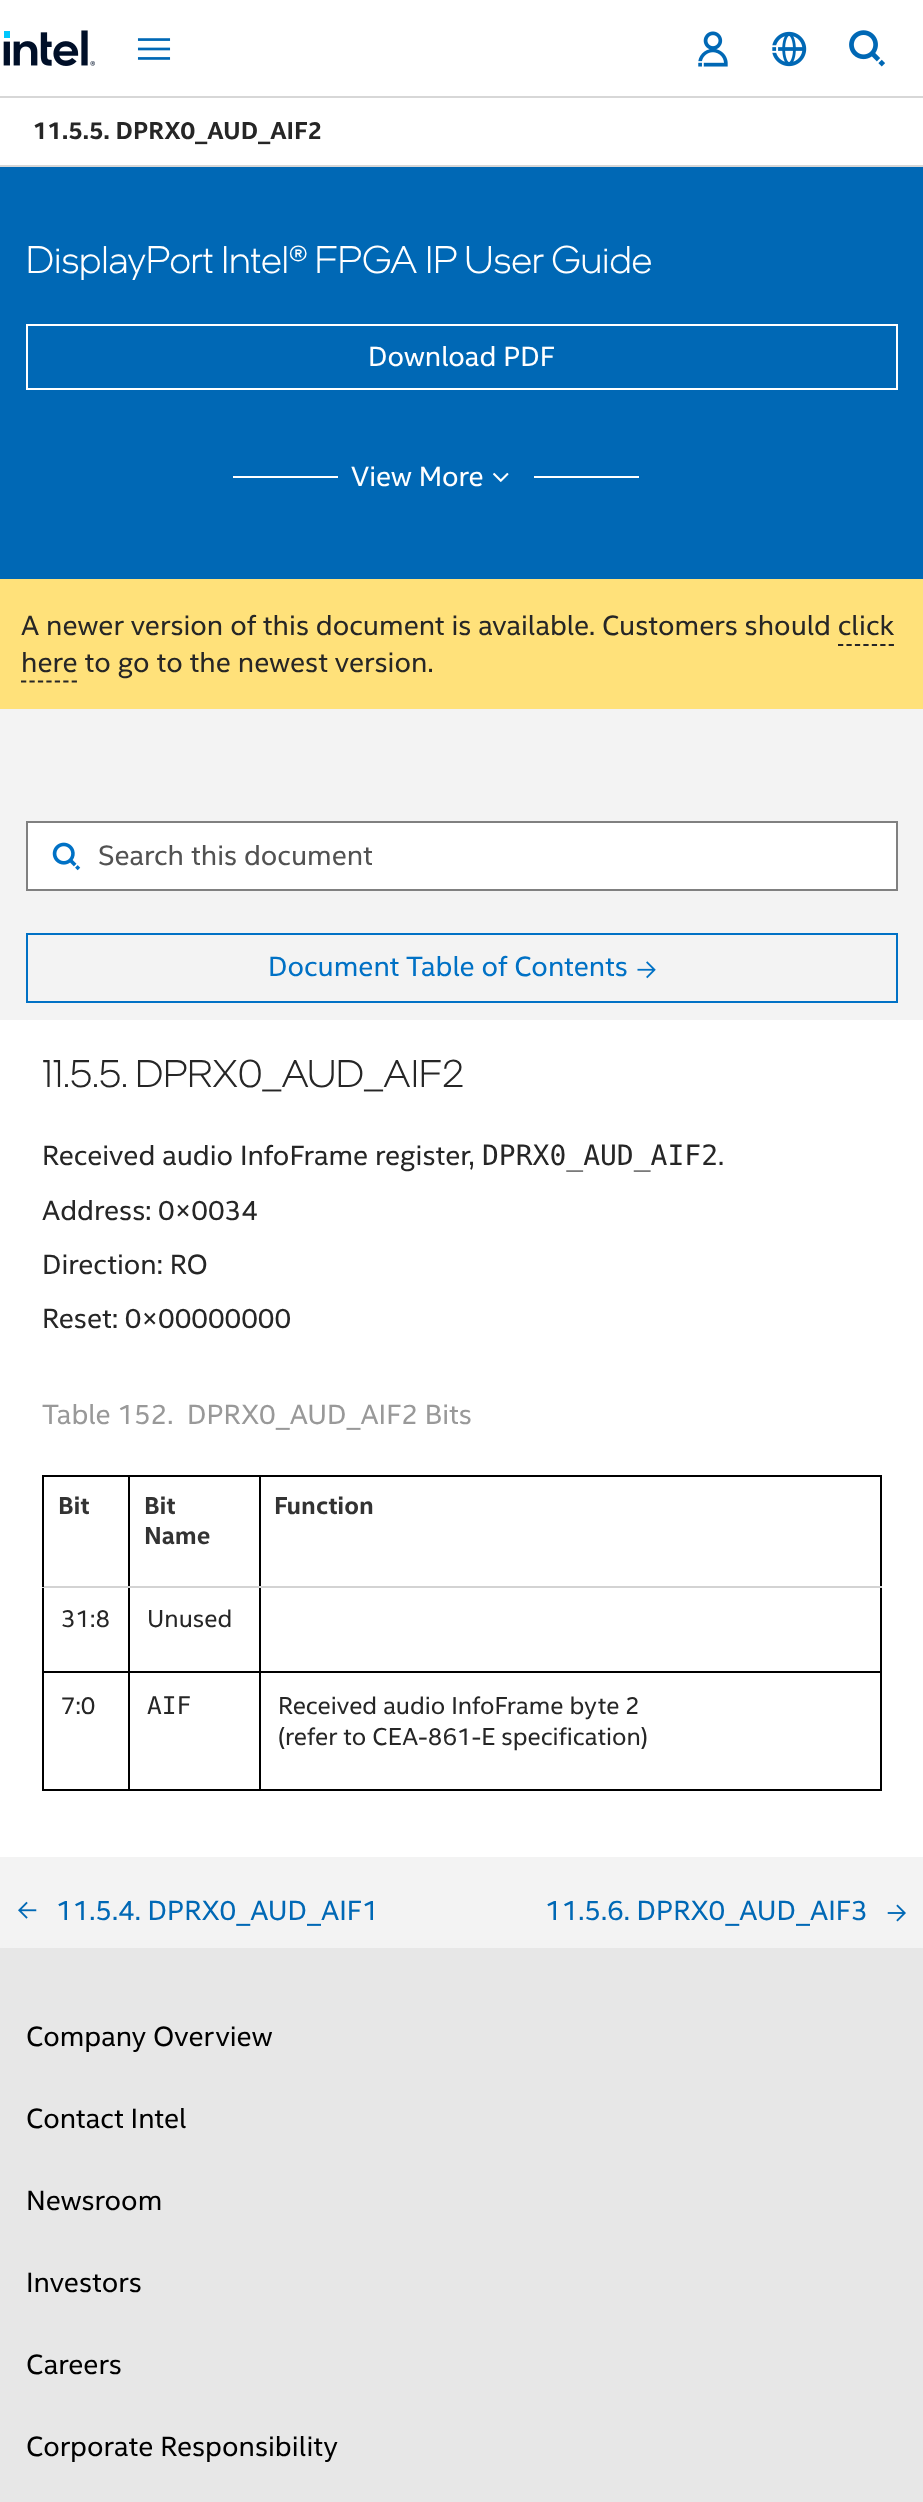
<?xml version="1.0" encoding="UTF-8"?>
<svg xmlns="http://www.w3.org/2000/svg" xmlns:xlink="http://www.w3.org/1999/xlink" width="923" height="2502">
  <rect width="100%" height="100%" fill="#ffffff" />
  <rect y="96" width="923" height="2" fill="#d7d7d7" />
  <image x="3" y="30" width="92" height="36" xlink:href="image1.png" />
  <image x="137" y="38" width="34" height="22" xlink:href="image2.png" />
  <image x="698" y="31" width="30" height="36" xlink:href="image3.png" />
  <image x="772" y="31" width="35" height="36" xlink:href="image4.png" />
  <image x="849" y="30" width="36" height="37" xlink:href="image5.png" />
  <rect y="165" width="923" height="2" fill="#d7d7d7" />
  <rect y="167" width="923" height="412" fill="#0068b5" />
  <rect x="27" y="325" width="870" height="64" fill="none" stroke="#ffffff" stroke-width="2" />
  <rect x="233" y="476" width="105" height="2" fill="#ffffff" />
  <image x="493" y="472" width="16" height="10" xlink:href="image6.png" />
  <rect x="534" y="476" width="105" height="2" fill="#ffffff" />
  <rect y="579" width="923" height="130" fill="#ffe17a" />
  <path d="M 838 645 h 56" fill="none" stroke="#262626" stroke-width="1.8" stroke-dasharray="5.25 3.2" />
  <path d="M 21 681.5 h 56" fill="none" stroke="#262626" stroke-width="1.8" stroke-dasharray="5.25 3.2" />
  <rect y="709" width="923" height="1239" fill="#f3f3f3" />
  <rect x="27" y="822" width="870" height="68" fill="#ffffff" stroke="#808080" stroke-width="2" />
  <image x="52" y="842" width="29" height="29" xlink:href="image7.png" />
  <rect x="27" y="934" width="870" height="68" fill="none" stroke="#0071c5" stroke-width="2" />
  <image x="637" y="961" width="19" height="18" xlink:href="image8.png" />
  <rect y="1020" width="923" height="837" fill="#ffffff" />
  <rect x="259" y="1475" width="623" height="2" fill="#000000" />
  <rect x="259" y="1671" width="623" height="2" fill="#000000" />
  <rect x="880" y="1586" width="2" height="204" fill="#000000" />
  <rect x="880" y="1475" width="2" height="112" fill="#000000" />
  <rect x="259" y="1789" width="623" height="2" fill="#000000" />
  <rect x="259" y="1671" width="2" height="119" fill="#000000" />
  <rect x="128" y="1671" width="133" height="2" fill="#000000" />
  <rect x="259" y="1586" width="2" height="87" fill="#000000" />
  <rect x="259" y="1586" width="623" height="2" fill="#d3d3d3" />
  <rect x="259" y="1475" width="2" height="112" fill="#000000" />
  <rect x="128" y="1475" width="133" height="2" fill="#000000" />
  <rect x="128" y="1789" width="133" height="2" fill="#000000" />
  <rect x="128" y="1671" width="2" height="119" fill="#000000" />
  <rect x="42" y="1671" width="88" height="2" fill="#000000" />
  <rect x="128" y="1586" width="2" height="87" fill="#000000" />
  <rect x="128" y="1586" width="133" height="2" fill="#d3d3d3" />
  <rect x="128" y="1475" width="2" height="112" fill="#000000" />
  <rect x="42" y="1475" width="88" height="2" fill="#000000" />
  <rect x="42" y="1789" width="88" height="2" fill="#000000" />
  <rect x="42" y="1586" width="2" height="204" fill="#000000" />
  <rect x="42" y="1586" width="88" height="2" fill="#d3d3d3" />
  <rect x="42" y="1475" width="2" height="112" fill="#000000" />
  <image x="18" y="1901" width="19" height="18" xlink:href="image9.png" />
  <image x="887" y="1904" width="19" height="18" xlink:href="image10.png" />
  <rect y="1948" width="923" height="554" fill="#e7e7e7" />
  <text x="33" y="139" style="font-family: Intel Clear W; font-size: 24.5px; font-weight: bold; fill: #262626">11.5.5. DPRX0_AUD_AIF2</text>
  <text x="26" y="273" style="font-family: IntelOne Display; font-size: 38.5px; font-weight: 300; fill: #ffffff">DisplayPort Intel® FPGA IP User Guide</text>
  <text x="368" y="366" style="font-family: Intel Clear W; font-size: 28px; fill: #ffffff">Download PDF</text>
  <text x="351" y="486" style="font-family: Intel Clear W; font-size: 28px; fill: #ffffff">View More</text>
  <text x="21" y="635" style="font-family: Intel Clear W; font-size: 28px; fill: #262626">A newer version of this document is available. Customers should click</text>
  <text x="21" y="672" style="font-family: Intel Clear W; font-size: 28px; fill: #262626">here to go to the newest version.</text>
  <text x="98" y="865" style="font-family: Intel Clear W; font-size: 28px; fill: #525252">Search this document</text>
  <text x="268" y="976" style="font-family: Intel Clear W; font-size: 28px; fill: #0071c5">Document Table of Contents</text>
  <text x="42" y="1087" style="font-family: IntelOne Display; font-size: 38.5px; font-weight: 300; fill: #262626">11.5.5. DPRX0_AUD_AIF2</text>
  <text x="42" y="1165" style="font-family: Intel Clear W; font-size: 28px; fill: #262626">Received audio InfoFrame register,</text>
  <text x="482" y="1165" style="font-family: DejaVu Sans Mono; font-size: 28px; fill: #262626">DPRX0_AUD_AIF2</text>
  <text x="718" y="1165" style="font-family: Intel Clear W; font-size: 28px; fill: #262626">.</text>
  <text x="42" y="1220" style="font-family: Intel Clear W; font-size: 28px; fill: #262626">Address: 0×0034</text>
  <text x="42" y="1274" style="font-family: Intel Clear W; font-size: 28px; fill: #262626">Direction: RO</text>
  <text x="42" y="1328" style="font-family: Intel Clear W; font-size: 28px; fill: #262626">Reset: 0×00000000</text>
  <text x="42" y="1424" style="font-family: Intel Clear W; font-size: 28px; fill: #999999">Table 152.</text>
  <text x="187" y="1424" style="font-family: Intel Clear W; font-size: 28px; fill: #999999">DPRX0_AUD_AIF2 Bits</text>
  <text x="58" y="1514" style="font-family: Intel Clear W; font-size: 24.5px; font-weight: bold; fill: #333333">Bit</text>
  <text x="144" y="1514" style="font-family: Intel Clear W; font-size: 24.5px; font-weight: bold; fill: #333333">Bit</text>
  <text x="144" y="1544" style="font-family: Intel Clear W; font-size: 24.5px; font-weight: bold; fill: #333333">Name</text>
  <text x="274" y="1514" style="font-family: Intel Clear W; font-size: 24.5px; font-weight: bold; fill: #333333">Function</text>
  <text x="61" y="1627" style="font-family: Intel Clear W; font-size: 24.5px; fill: #262626">31:8</text>
  <text x="147" y="1627" style="font-family: Intel Clear W; font-size: 24.5px; fill: #262626">Unused</text>
  <text x="61" y="1714" style="font-family: Intel Clear W; font-size: 24.5px; fill: #262626">7:0</text>
  <text x="147" y="1714" style="font-family: DejaVu Sans Mono; font-size: 24.5px; fill: #262626">AIF</text>
  <text x="278" y="1714" style="font-family: Intel Clear W; font-size: 24.5px; fill: #262626">Received audio InfoFrame byte 2</text>
  <text x="278" y="1745" style="font-family: Intel Clear W; font-size: 24.5px; fill: #262626">(refer to CEA-861-E specification)</text>
  <text x="56" y="1920" style="font-family: Intel Clear W; font-size: 28px; fill: #0068b5">11.5.4. DPRX0_AUD_AIF1</text>
  <text x="545" y="1920" style="font-family: Intel Clear W; font-size: 28px; fill: #0068b5">11.5.6. DPRX0_AUD_AIF3</text>
  <text x="26" y="2046" style="font-family: Intel Clear W; font-size: 28px; fill: #000000">Company Overview</text>
  <text x="26" y="2128" style="font-family: Intel Clear W; font-size: 28px; fill: #000000">Contact Intel</text>
  <text x="26" y="2210" style="font-family: Intel Clear W; font-size: 28px; fill: #000000">Newsroom</text>
  <text x="26" y="2292" style="font-family: Intel Clear W; font-size: 28px; fill: #000000">Investors</text>
  <text x="26" y="2374" style="font-family: Intel Clear W; font-size: 28px; fill: #000000">Careers</text>
  <text x="26" y="2456" style="font-family: Intel Clear W; font-size: 28px; fill: #000000">Corporate Responsibility</text>
</svg>
